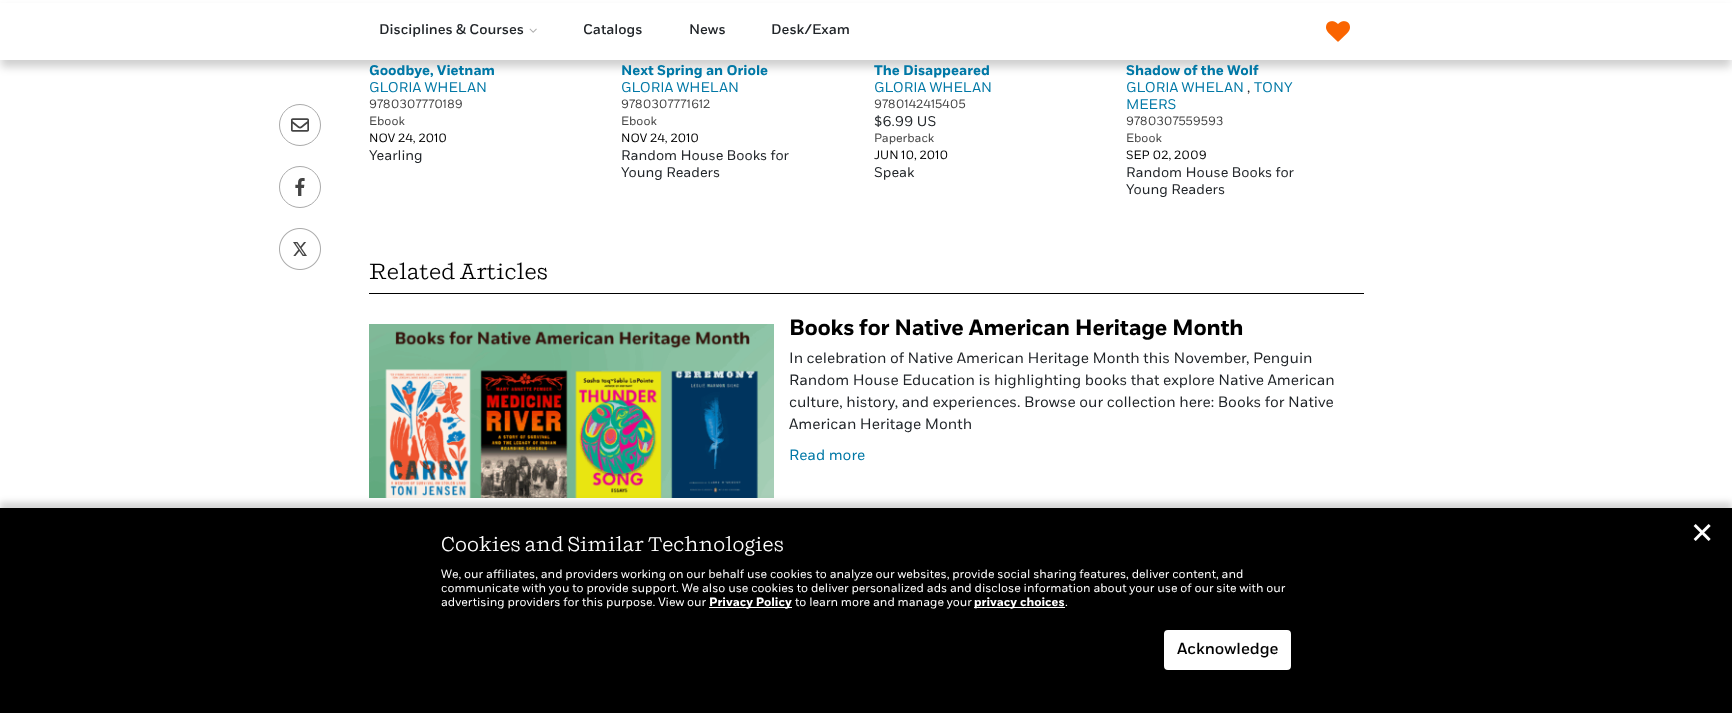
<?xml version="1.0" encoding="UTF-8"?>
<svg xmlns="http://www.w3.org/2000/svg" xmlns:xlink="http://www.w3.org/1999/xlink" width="1732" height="713">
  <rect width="100%" height="100%" fill="#ffffff" />
  <rect x="1" y="9" width="1730" height="58" fill="#000000" fill-opacity="0.19" filter="blur(4px)" />
  <rect y="3" width="1732" height="57" fill="#ffffff" />
  <image x="529" y="28" width="8" height="5" xlink:href="image1.png" />
  <image x="1326" y="21" width="24" height="21" xlink:href="image2.png" />
  <image x="279" y="104" width="42" height="42" xlink:href="image3.png" />
  <image x="279" y="166" width="42" height="42" xlink:href="image4.png" />
  <image x="279" y="228" width="42" height="42" xlink:href="image5.png" />
  <rect x="369" y="293" width="995" height="1" fill="#000000" />
  <image x="369" y="324" width="405" height="174" xlink:href="image6.png" />
  <rect y="502" width="1732" height="205" fill="#000000" fill-opacity="0.16" filter="blur(3px)" />
  <rect y="508" width="1732" height="205" fill="#000000" />
  <rect x="709" y="607" width="83" height="1" fill="#ffffff" />
  <rect x="974" y="607" width="91" height="1" fill="#ffffff" />
  <rect x="1165" y="631" width="125" height="38" rx="3" fill="#ffffff" stroke="#ffffff" stroke-width="2" />
  <text x="379" y="34" style="font-family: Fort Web; font-size: 14px; font-weight: 500; fill: #212529">Disciplines &amp; Courses</text>
  <text x="583" y="34" style="font-family: Fort Web; font-size: 14px; font-weight: 500; fill: #212529">Catalogs</text>
  <text x="689" y="34" style="font-family: Fort Web; font-size: 14px; font-weight: 500; fill: #212529">News</text>
  <text x="771" y="34" style="font-family: Fort Web; font-size: 14px; font-weight: 500; fill: #212529">Desk/Exam</text>
  <text x="369" y="75" style="font-family: Fort Web; font-size: 14px; font-weight: bold; fill: #0078a6">Goodbye, Vietnam</text>
  <text x="369" y="92" style="font-family: Fort Web; font-size: 14px; fill: #0078a6">GLORIA WHELAN</text>
  <text x="369" y="108" style="font-family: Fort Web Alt; font-size: 12px; fill: #444444">9780307770189</text>
  <text x="369" y="125" style="font-family: Fort Web; font-size: 12px; fill: #444444">Ebook</text>
  <text x="369" y="142" style="font-family: Fort Web Alt; font-size: 12px; fill: #000000">NOV 24, 2010</text>
  <text x="369" y="160" style="font-family: Fort Web; font-size: 14px; fill: #212529">Yearling</text>
  <text x="621" y="75" style="font-family: Fort Web; font-size: 14px; font-weight: bold; fill: #0078a6">Next Spring an Oriole</text>
  <text x="621" y="92" style="font-family: Fort Web; font-size: 14px; fill: #0078a6">GLORIA WHELAN</text>
  <text x="621" y="108" style="font-family: Fort Web Alt; font-size: 12px; fill: #444444">9780307771612</text>
  <text x="621" y="125" style="font-family: Fort Web; font-size: 12px; fill: #444444">Ebook</text>
  <text x="621" y="142" style="font-family: Fort Web Alt; font-size: 12px; fill: #000000">NOV 24, 2010</text>
  <text x="621" y="160" style="font-family: Fort Web; font-size: 14px; fill: #212529">Random House Books for</text>
  <text x="621" y="177" style="font-family: Fort Web; font-size: 14px; fill: #212529">Young Readers</text>
  <text x="874" y="75" style="font-family: Fort Web; font-size: 14px; font-weight: bold; fill: #0078a6">The Disappeared</text>
  <text x="874" y="92" style="font-family: Fort Web; font-size: 14px; fill: #0078a6">GLORIA WHELAN</text>
  <text x="874" y="108" style="font-family: Fort Web Alt; font-size: 12px; fill: #444444">9780142415405</text>
  <text x="874" y="126" style="font-family: Fort Web Alt; font-size: 14px; fill: #212529">$6.99 US</text>
  <text x="874" y="142" style="font-family: Fort Web; font-size: 12px; fill: #444444">Paperback</text>
  <text x="874" y="159" style="font-family: Fort Web Alt; font-size: 12px; fill: #000000">JUN 10, 2010</text>
  <text x="874" y="177" style="font-family: Fort Web; font-size: 14px; fill: #212529">Speak</text>
  <text x="1126" y="75" style="font-family: Fort Web; font-size: 14px; font-weight: bold; fill: #0078a6">Shadow of the Wolf</text>
  <text x="1126" y="92" style="font-family: Fort Web; font-size: 14px; fill: #0078a6">GLORIA WHELAN</text>
  <text x="1247" y="92" style="font-family: Fort Web; font-size: 14px; fill: #212529">,</text>
  <text x="1254" y="92" style="font-family: Fort Web; font-size: 14px; fill: #0078a6">TONY</text>
  <text x="1126" y="109" style="font-family: Fort Web; font-size: 14px; fill: #0078a6">MEERS</text>
  <text x="1126" y="125" style="font-family: Fort Web Alt; font-size: 12px; fill: #444444">9780307559593</text>
  <text x="1126" y="142" style="font-family: Fort Web; font-size: 12px; fill: #444444">Ebook</text>
  <text x="1126" y="159" style="font-family: Fort Web Alt; font-size: 12px; fill: #000000">SEP 02, 2009</text>
  <text x="1126" y="177" style="font-family: Fort Web; font-size: 14px; fill: #212529">Random House Books for</text>
  <text x="1126" y="194" style="font-family: Fort Web; font-size: 14px; fill: #212529">Young Readers</text>
  <text x="369" y="279" style="font-family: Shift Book; font-size: 22px; fill: #000000">Related Articles</text>
  <text x="789" y="335" style="font-family: Fort Web; font-size: 22px; font-weight: bold; letter-spacing: -0.25px; fill: #000000">Books for Native American Heritage Month</text>
  <text x="789" y="363" style="font-family: Fort Web; font-size: 15px; fill: #212529">In celebration of Native American Heritage Month this November, Penguin</text>
  <text x="789" y="385" style="font-family: Fort Web; font-size: 15px; fill: #212529">Random House Education is highlighting books that explore Native American</text>
  <text x="789" y="407" style="font-family: Fort Web; font-size: 15px; fill: #212529">culture, history, and experiences. Browse our collection here: Books for Native</text>
  <text x="789" y="429" style="font-family: Fort Web; font-size: 15px; fill: #212529">American Heritage Month</text>
  <text x="789" y="460" style="font-family: Fort Web; font-size: 15px; fill: #0078a6">Read more</text>
  <text x="1690" y="543" style="font-family: DejaVu Sans; font-size: 29px; fill: #ffffff">✕</text>
  <text x="441" y="551" style="font-family: Shift Book; font-size: 20px; fill: #ffffff">Cookies and Similar Technologies</text>
  <text x="441" y="578" style="font-family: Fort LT; font-size: 12px; fill: #ffffff">We, our affiliates, and providers working on our behalf use cookies to analyze our websites, provide social sharing features, deliver content, and</text>
  <text x="441" y="592" style="font-family: Fort LT; font-size: 12px; fill: #ffffff">communicate with you to provide support. We also use cookies to deliver personalized ads and disclose information about your use of our site with our</text>
  <text x="441" y="606" style="font-family: Fort LT; font-size: 12px; fill: #ffffff">advertising providers for this purpose. View our</text>
  <text x="709" y="606" style="font-family: Fort LT; font-size: 12px; font-weight: bold; fill: #ffffff">Privacy Policy</text>
  <text x="795" y="606" style="font-family: Fort LT; font-size: 12px; fill: #ffffff">to learn more and manage your</text>
  <text x="974" y="606" style="font-family: Fort LT; font-size: 12px; font-weight: bold; fill: #ffffff">privacy choices</text>
  <text x="1065" y="606" style="font-family: Fort LT; font-size: 12px; fill: #ffffff">.</text>
  <text x="1177" y="654" style="font-family: Fort LT; font-size: 16px; font-weight: 500; fill: #000000">Acknowledge</text>
</svg>
